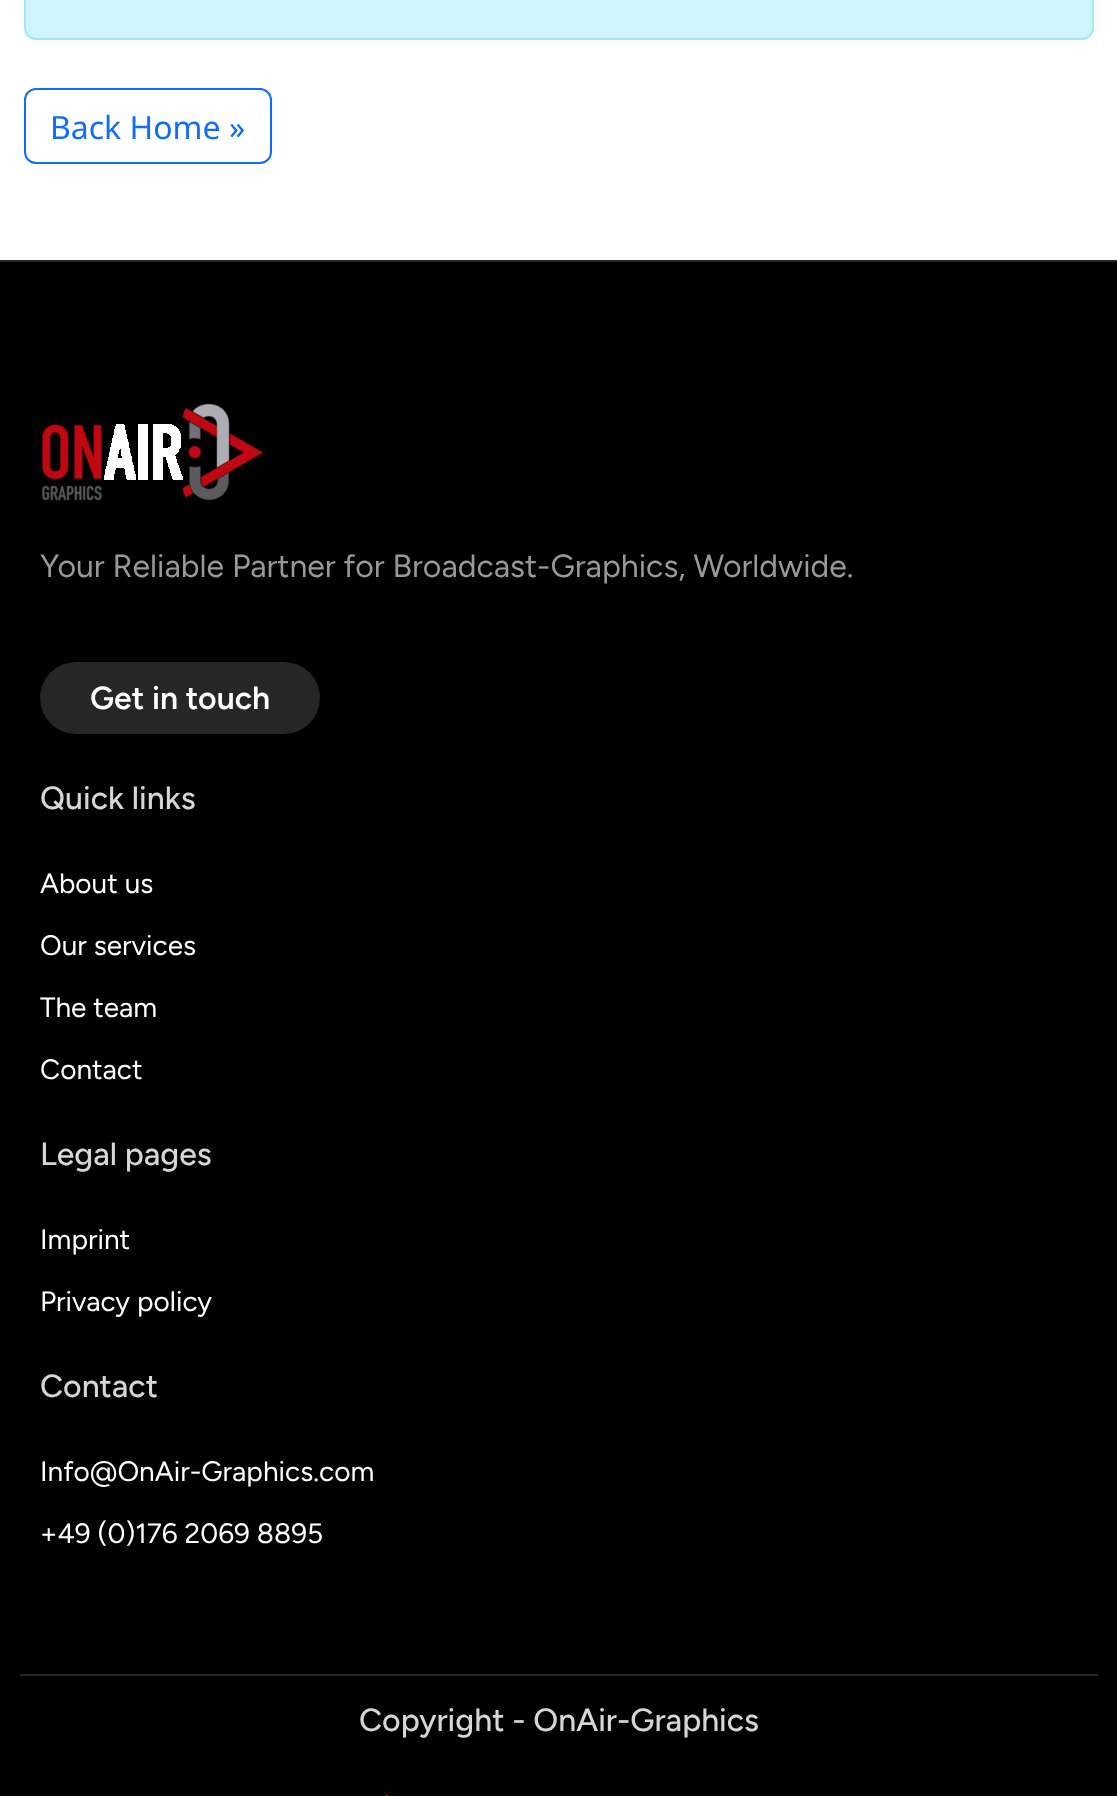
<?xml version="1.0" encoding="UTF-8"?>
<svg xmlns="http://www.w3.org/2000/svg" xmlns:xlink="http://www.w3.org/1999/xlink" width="1117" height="1796">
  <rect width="100%" height="100%" fill="#ffffff" />
  <rect x="25" y="-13" width="1068" height="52" rx="11" fill="#cff4fc" stroke="#9eeaf9" stroke-width="2" />
  <rect x="25" y="89" width="246" height="74" rx="11" fill="none" stroke="#0d6efd" stroke-width="2" />
  <rect y="262" width="1117" height="1534" fill="#000000" />
  <rect y="260" width="1117" height="2" fill="#262626" />
  <image x="42" y="403" width="222" height="98" xlink:href="image1.png" />
  <rect x="40" y="662" width="280" height="72" rx="36" fill="#262626" />
  <rect x="20" y="1674" width="1078" height="2" fill="#262626" />
  <image x="385" y="1795" width="3" height="1" xlink:href="image2.png" />
  <text x="50" y="139" style="font-family: Noto Sans; font-size: 32px; fill: #0d6efd">Back Home »</text>
  <text x="40" y="577" style="font-family: Figtree; font-size: 32px; fill: #999999">Your Reliable Partner for Broadcast-Graphics, Worldwide.</text>
  <text x="90" y="709" style="font-family: Figtree; font-size: 32px; font-weight: 600; fill: #ffffff">Get in touch</text>
  <text x="40" y="809" style="font-family: Figtree; font-size: 32px; font-weight: 500; fill: #d6d6d6">Quick links</text>
  <text x="40" y="893" style="font-family: Figtree; font-size: 28px; fill: #ffffff">About us</text>
  <text x="40" y="955" style="font-family: Figtree; font-size: 28px; fill: #ffffff">Our services</text>
  <text x="40" y="1017" style="font-family: Figtree; font-size: 28px; fill: #ffffff">The team</text>
  <text x="40" y="1079" style="font-family: Figtree; font-size: 28px; fill: #ffffff">Contact</text>
  <text x="40" y="1165" style="font-family: Figtree; font-size: 32px; font-weight: 500; fill: #d6d6d6">Legal pages</text>
  <text x="40" y="1249" style="font-family: Figtree; font-size: 28px; fill: #ffffff">Imprint</text>
  <text x="40" y="1311" style="font-family: Figtree; font-size: 28px; fill: #ffffff">Privacy policy</text>
  <text x="40" y="1397" style="font-family: Figtree; font-size: 32px; font-weight: 500; fill: #d6d6d6">Contact</text>
  <text x="40" y="1481" style="font-family: Figtree; font-size: 28px; fill: #ffffff">Info@OnAir-Graphics.com</text>
  <text x="40" y="1543" style="font-family: Figtree; font-size: 28px; fill: #ffffff">+49 (0)176 2069 8895</text>
  <text x="359" y="1731" style="font-family: Figtree; font-size: 32px; font-weight: 500; fill: #d6d6d6">Copyright - OnAir-Graphics</text>
</svg>
